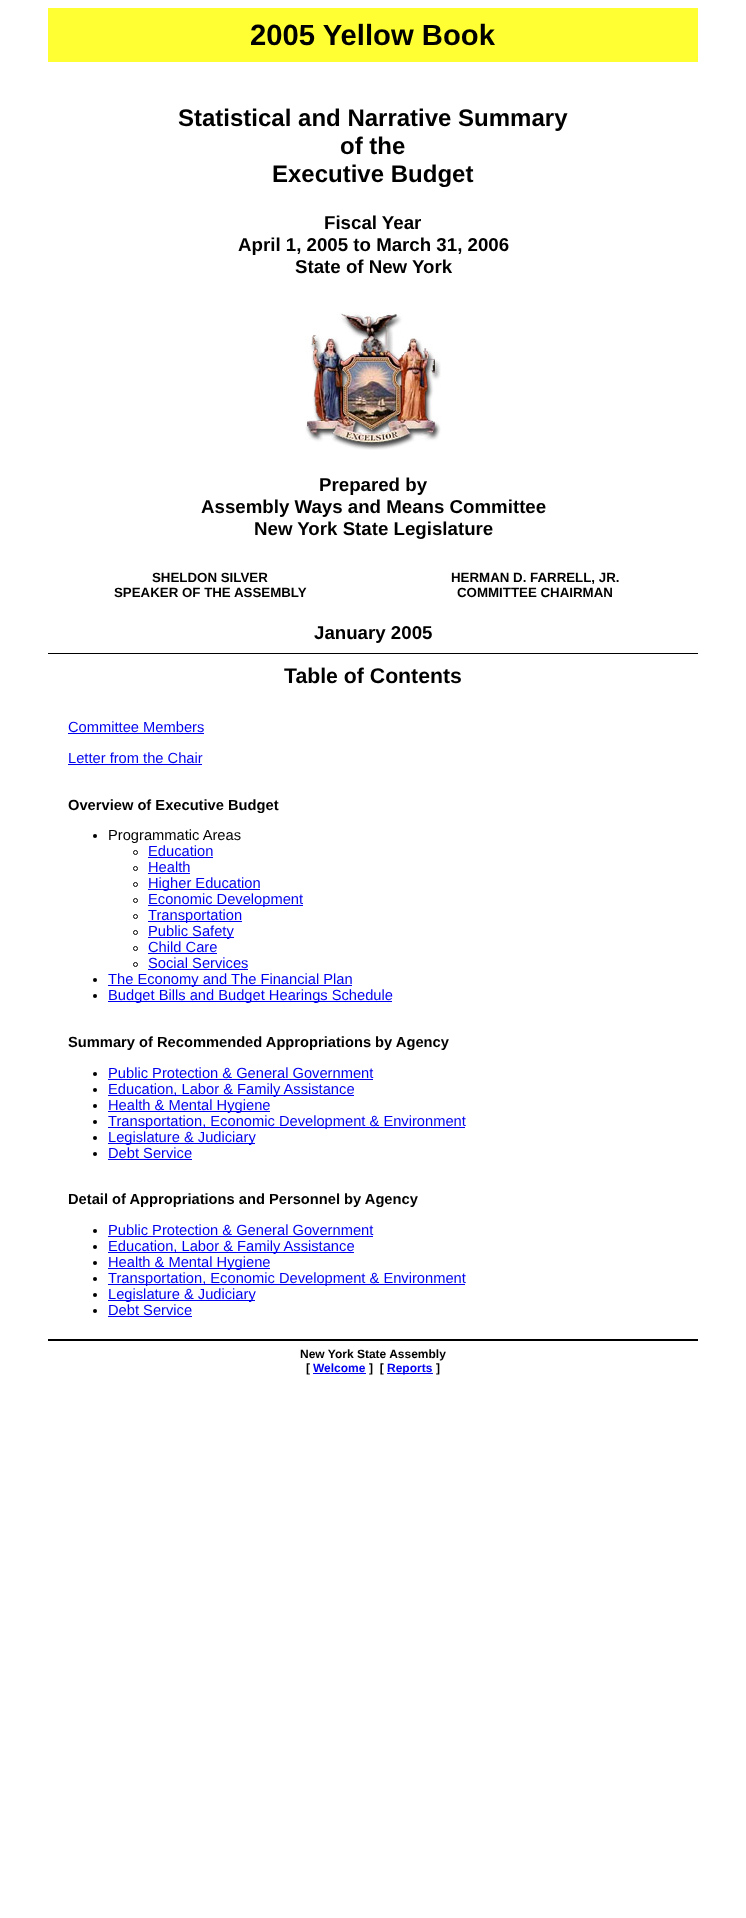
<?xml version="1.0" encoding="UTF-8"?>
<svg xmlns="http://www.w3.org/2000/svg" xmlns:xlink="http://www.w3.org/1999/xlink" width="746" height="1918">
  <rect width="100%" height="100%" fill="#ffffff" />
  <rect x="48" y="8" width="650" height="54" fill="#ffff33" />
  <image x="305" y="312" width="136" height="138" xlink:href="image1.png" />
  <rect x="48" y="653" width="650" height="1" fill="#000000" />
  <rect x="68" y="733" width="136" height="1" fill="#0000ee" />
  <rect x="68" y="764" width="134" height="1" fill="#0000ee" />
  <circle cx="95" cy="836" r="2" fill="#000000" />
  <circle cx="135.5" cy="852.5" r="2" fill="none" stroke="#000000" />
  <rect x="148" y="857" width="65" height="1" fill="#0000ee" />
  <circle cx="135.5" cy="868.5" r="2" fill="none" stroke="#000000" />
  <rect x="148" y="873" width="42" height="1" fill="#0000ee" />
  <circle cx="135.5" cy="884.5" r="2" fill="none" stroke="#000000" />
  <rect x="148" y="889" width="112" height="1" fill="#0000ee" />
  <circle cx="135.5" cy="900.5" r="2" fill="none" stroke="#000000" />
  <rect x="148" y="905" width="155" height="1" fill="#0000ee" />
  <circle cx="135.5" cy="916.5" r="2" fill="none" stroke="#000000" />
  <rect x="148" y="921" width="94" height="1" fill="#0000ee" />
  <circle cx="135.5" cy="932.5" r="2" fill="none" stroke="#000000" />
  <rect x="148" y="937" width="86" height="1" fill="#0000ee" />
  <circle cx="135.5" cy="948.5" r="2" fill="none" stroke="#000000" />
  <rect x="148" y="953" width="69" height="1" fill="#0000ee" />
  <circle cx="135.5" cy="964.5" r="2" fill="none" stroke="#000000" />
  <rect x="148" y="969" width="100" height="1" fill="#0000ee" />
  <circle cx="95" cy="980" r="2" fill="#000000" />
  <rect x="108" y="985" width="244" height="1" fill="#0000ee" />
  <circle cx="95" cy="996" r="2" fill="#000000" />
  <rect x="108" y="1001" width="284" height="1" fill="#0000ee" />
  <circle cx="95" cy="1074" r="2" fill="#000000" />
  <rect x="108" y="1079" width="265" height="1" fill="#0000ee" />
  <circle cx="95" cy="1090" r="2" fill="#000000" />
  <rect x="108" y="1095" width="246" height="1" fill="#0000ee" />
  <circle cx="95" cy="1106" r="2" fill="#000000" />
  <rect x="108" y="1111" width="162" height="1" fill="#0000ee" />
  <circle cx="95" cy="1122" r="2" fill="#000000" />
  <rect x="108" y="1127" width="357" height="1" fill="#0000ee" />
  <circle cx="95" cy="1138" r="2" fill="#000000" />
  <rect x="108" y="1143" width="147" height="1" fill="#0000ee" />
  <circle cx="95" cy="1154" r="2" fill="#000000" />
  <rect x="108" y="1159" width="84" height="1" fill="#0000ee" />
  <circle cx="95" cy="1231" r="2" fill="#000000" />
  <rect x="108" y="1236" width="265" height="1" fill="#0000ee" />
  <circle cx="95" cy="1247" r="2" fill="#000000" />
  <rect x="108" y="1252" width="246" height="1" fill="#0000ee" />
  <circle cx="95" cy="1263" r="2" fill="#000000" />
  <rect x="108" y="1268" width="162" height="1" fill="#0000ee" />
  <circle cx="95" cy="1279" r="2" fill="#000000" />
  <rect x="108" y="1284" width="357" height="1" fill="#0000ee" />
  <circle cx="95" cy="1295" r="2" fill="#000000" />
  <rect x="108" y="1300" width="147" height="1" fill="#0000ee" />
  <circle cx="95" cy="1311" r="2" fill="#000000" />
  <rect x="108" y="1316" width="84" height="1" fill="#0000ee" />
  <rect x="48" y="1339" width="650" height="2" fill="#000000" />
  <rect x="313" y="1373" width="53" height="1" fill="#0000ee" />
  <rect x="387" y="1373" width="46" height="1" fill="#0000ee" />
  <text x="250" y="45" style="font-family: Liberation Sans; font-size: 29.25px; font-weight: bold; fill: #000000">2005 Yellow Book</text>
  <text x="178" y="126" style="font-family: Liberation Sans; font-size: 24px; font-weight: bold; fill: #000000">Statistical and Narrative Summary</text>
  <text x="340" y="154" style="font-family: Liberation Sans; font-size: 24px; font-weight: bold; fill: #000000">of the</text>
  <text x="272" y="182" style="font-family: Liberation Sans; font-size: 24px; font-weight: bold; fill: #000000">Executive Budget</text>
  <text x="324" y="229" style="font-family: Liberation Sans; font-size: 18.7px; font-weight: bold; fill: #000000">Fiscal Year</text>
  <text x="238" y="251" style="font-family: Liberation Sans; font-size: 18.7px; font-weight: bold; fill: #000000">April 1, 2005 to March 31, 2006</text>
  <text x="295" y="273" style="font-family: Liberation Sans; font-size: 18.7px; font-weight: bold; fill: #000000">State of New York</text>
  <text x="319" y="491" style="font-family: Liberation Sans; font-size: 18.7px; font-weight: bold; fill: #000000">Prepared by</text>
  <text x="201" y="513" style="font-family: Liberation Sans; font-size: 18.7px; font-weight: bold; fill: #000000">Assembly Ways and Means Committee</text>
  <text x="254" y="535" style="font-family: Liberation Sans; font-size: 18.7px; font-weight: bold; fill: #000000">New York State Legislature</text>
  <text x="152" y="582" style="font-family: Liberation Sans; font-size: 13.3px; font-weight: bold; fill: #000000">SHELDON SILVER</text>
  <text x="114" y="597" style="font-family: Liberation Sans; font-size: 13.3px; font-weight: bold; fill: #000000">SPEAKER OF THE ASSEMBLY</text>
  <text x="451" y="582" style="font-family: Liberation Sans; font-size: 13.3px; font-weight: bold; fill: #000000">HERMAN D. FARRELL, JR.</text>
  <text x="457" y="597" style="font-family: Liberation Sans; font-size: 13.3px; font-weight: bold; fill: #000000">COMMITTEE CHAIRMAN</text>
  <text x="314" y="639" style="font-family: Liberation Sans; font-size: 18.7px; font-weight: bold; fill: #000000">January 2005</text>
  <text x="284" y="683" style="font-family: Liberation Sans; font-size: 21.25px; font-weight: bold; fill: #000000">Table of Contents</text>
  <text x="68" y="732" style="font-family: Liberation Sans; font-size: 14.7px; fill: #0000ee">Committee Members</text>
  <text x="68" y="763" style="font-family: Liberation Sans; font-size: 14.7px; fill: #0000ee">Letter from the Chair</text>
  <text x="68" y="810" style="font-family: Liberation Sans; font-size: 14.7px; font-weight: bold; fill: #000000">Overview of Executive Budget</text>
  <text x="108" y="840" style="font-family: Liberation Sans; font-size: 14.7px; fill: #000000">Programmatic Areas</text>
  <text x="148" y="856" style="font-family: Liberation Sans; font-size: 14.7px; fill: #0000ee">Education</text>
  <text x="148" y="872" style="font-family: Liberation Sans; font-size: 14.7px; fill: #0000ee">Health</text>
  <text x="148" y="888" style="font-family: Liberation Sans; font-size: 14.7px; fill: #0000ee">Higher Education</text>
  <text x="148" y="904" style="font-family: Liberation Sans; font-size: 14.7px; fill: #0000ee">Economic Development</text>
  <text x="148" y="920" style="font-family: Liberation Sans; font-size: 14.7px; fill: #0000ee">Transportation</text>
  <text x="148" y="936" style="font-family: Liberation Sans; font-size: 14.7px; fill: #0000ee">Public Safety</text>
  <text x="148" y="952" style="font-family: Liberation Sans; font-size: 14.7px; fill: #0000ee">Child Care</text>
  <text x="148" y="968" style="font-family: Liberation Sans; font-size: 14.7px; fill: #0000ee">Social Services</text>
  <text x="108" y="984" style="font-family: Liberation Sans; font-size: 14.7px; fill: #0000ee">The Economy and The Financial Plan</text>
  <text x="108" y="1000" style="font-family: Liberation Sans; font-size: 14.7px; fill: #0000ee">Budget Bills and Budget Hearings Schedule</text>
  <text x="68" y="1047" style="font-family: Liberation Sans; font-size: 14.7px; font-weight: bold; fill: #000000">Summary of Recommended Appropriations by Agency</text>
  <text x="108" y="1078" style="font-family: Liberation Sans; font-size: 14.7px; fill: #0000ee">Public Protection &amp; General Government</text>
  <text x="108" y="1094" style="font-family: Liberation Sans; font-size: 14.7px; fill: #0000ee">Education, Labor &amp; Family Assistance</text>
  <text x="108" y="1110" style="font-family: Liberation Sans; font-size: 14.7px; fill: #0000ee">Health &amp; Mental Hygiene</text>
  <text x="108" y="1126" style="font-family: Liberation Sans; font-size: 14.7px; fill: #0000ee">Transportation, Economic Development &amp; Environment</text>
  <text x="108" y="1142" style="font-family: Liberation Sans; font-size: 14.7px; fill: #0000ee">Legislature &amp; Judiciary</text>
  <text x="108" y="1158" style="font-family: Liberation Sans; font-size: 14.7px; fill: #0000ee">Debt Service</text>
  <text x="68" y="1204" style="font-family: Liberation Sans; font-size: 14.7px; font-weight: bold; fill: #000000">Detail of Appropriations and Personnel by Agency</text>
  <text x="108" y="1235" style="font-family: Liberation Sans; font-size: 14.7px; fill: #0000ee">Public Protection &amp; General Government</text>
  <text x="108" y="1251" style="font-family: Liberation Sans; font-size: 14.7px; fill: #0000ee">Education, Labor &amp; Family Assistance</text>
  <text x="108" y="1267" style="font-family: Liberation Sans; font-size: 14.7px; fill: #0000ee">Health &amp; Mental Hygiene</text>
  <text x="108" y="1283" style="font-family: Liberation Sans; font-size: 14.7px; fill: #0000ee">Transportation, Economic Development &amp; Environment</text>
  <text x="108" y="1299" style="font-family: Liberation Sans; font-size: 14.7px; fill: #0000ee">Legislature &amp; Judiciary</text>
  <text x="108" y="1315" style="font-family: Liberation Sans; font-size: 14.7px; fill: #0000ee">Debt Service</text>
  <text x="300" y="1358" style="font-family: Liberation Sans; font-size: 12px; font-weight: bold; fill: #000000">New York State Assembly</text>
  <text x="306" y="1372" style="font-family: Liberation Sans; font-size: 12px; font-weight: bold; fill: #000000">[</text>
  <text x="313" y="1372" style="font-family: Liberation Sans; font-size: 12px; font-weight: bold; fill: #0000ee">Welcome</text>
  <text x="369" y="1372" style="font-family: Liberation Sans; font-size: 12px; font-weight: bold; fill: #000000" xml:space="preserve">]  [</text>
  <text x="387" y="1372" style="font-family: Liberation Sans; font-size: 12px; font-weight: bold; fill: #0000ee">Reports</text>
  <text x="436" y="1372" style="font-family: Liberation Sans; font-size: 12px; font-weight: bold; fill: #000000">]</text>
</svg>
